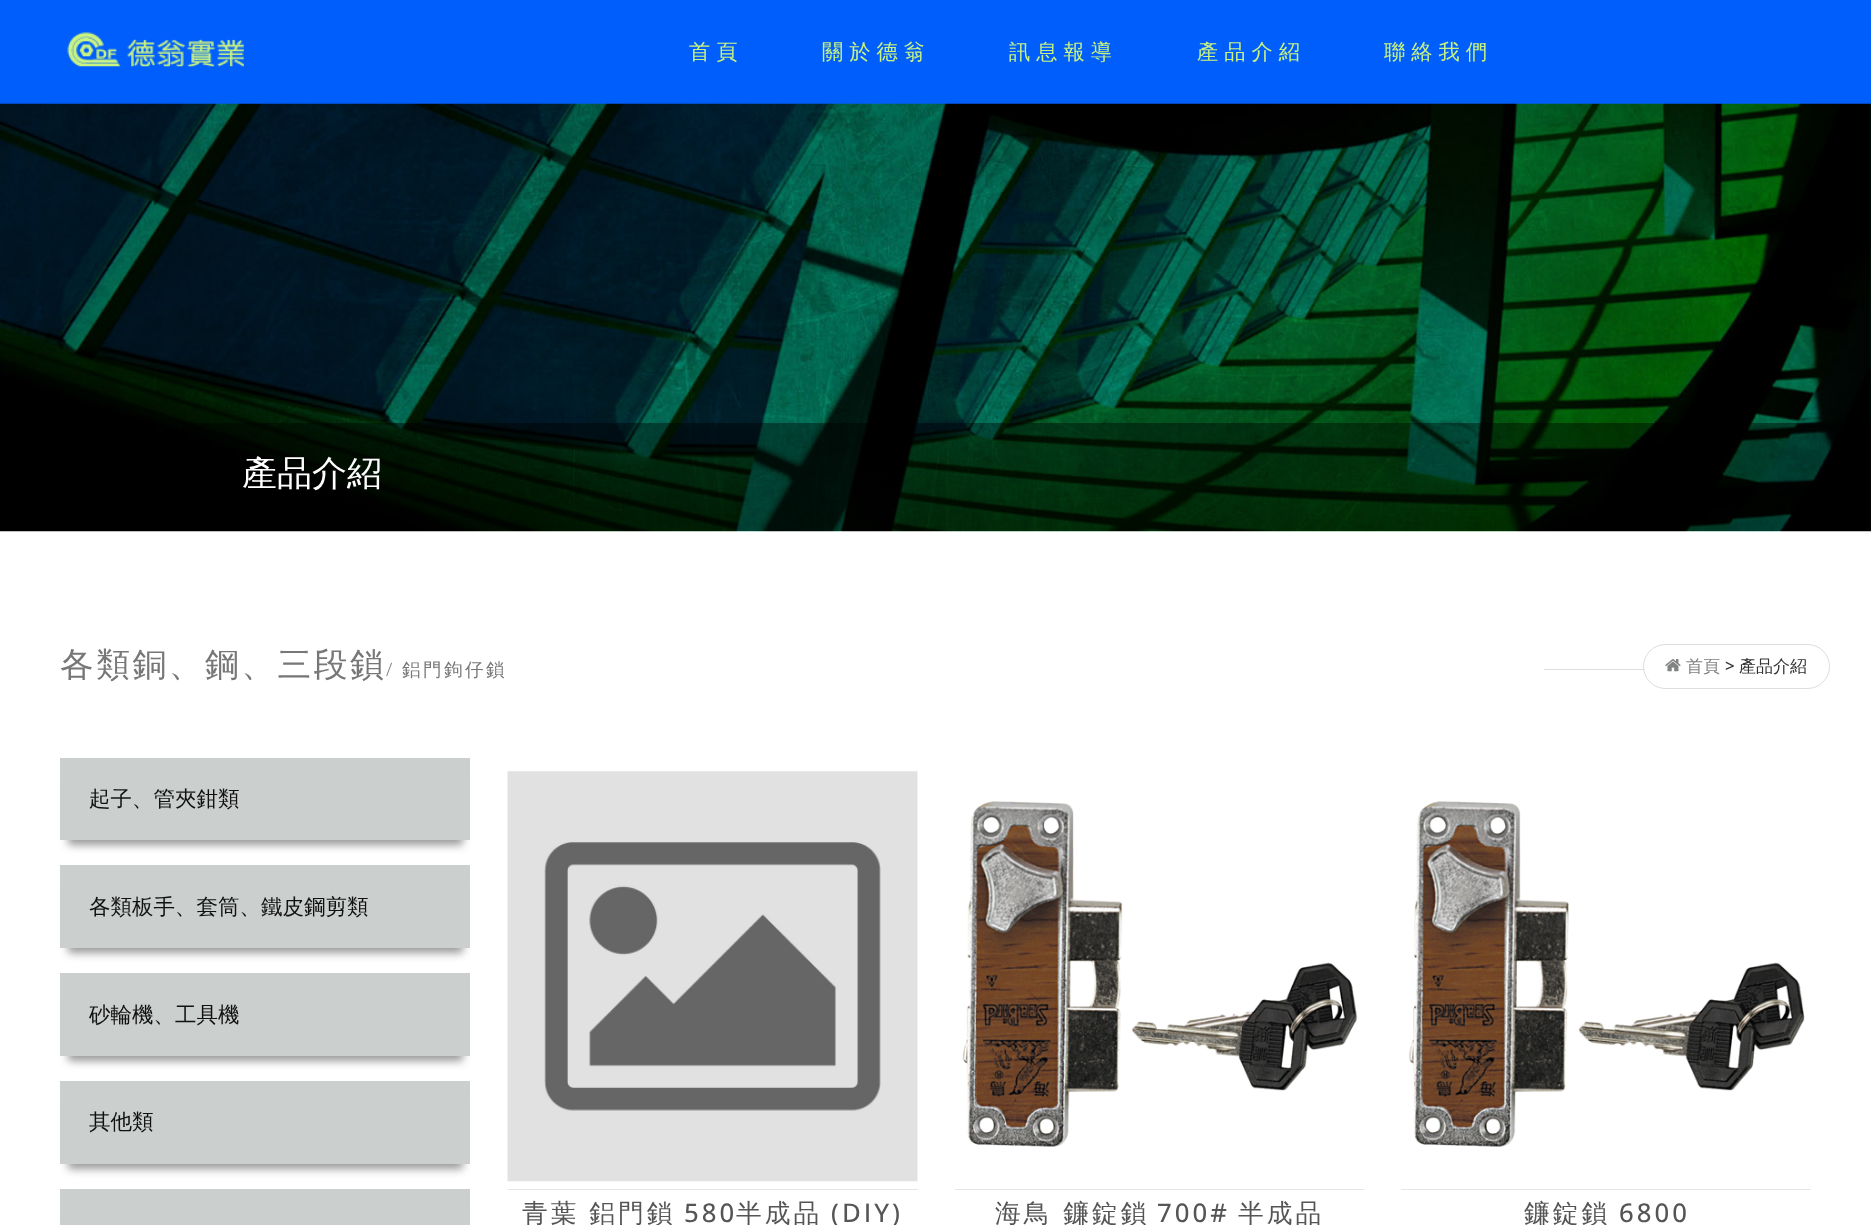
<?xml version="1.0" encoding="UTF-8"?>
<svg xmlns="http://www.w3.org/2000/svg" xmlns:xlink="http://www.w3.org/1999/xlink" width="1871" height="1225">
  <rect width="100%" height="100%" fill="#ffffff" />
  <rect width="1871" height="104" fill="#005efc" />
  <image x="67" y="32" width="177" height="35" xlink:href="image1.png" />
  <image x="0" y="103" width="1871" height="429" xlink:href="image2.png" />
  <rect x="182" y="423" width="1689" height="108" fill="#000000" fill-opacity="0.4" />
  <rect x="1643.5" y="644.5" width="186" height="44" rx="22" fill="none" stroke="#dddddd" />
  <rect x="1544" y="669" width="100" height="1" fill="#dddddd" />
  <image x="1665" y="659" width="16" height="13" xlink:href="image3.png" />
  <rect x="68" y="778" width="395" height="67" fill="#999999" filter="blur(4px)" />
  <rect x="60" y="758" width="410" height="82" fill="#cbcfcd" />
  <rect x="68" y="885" width="395" height="68" fill="#999999" filter="blur(4px)" />
  <rect x="60" y="865" width="410" height="83" fill="#cbcfcd" />
  <rect x="68" y="993" width="395" height="68" fill="#999999" filter="blur(4px)" />
  <rect x="60" y="973" width="410" height="83" fill="#cbcfcd" />
  <rect x="68" y="1101" width="395" height="68" fill="#999999" filter="blur(4px)" />
  <rect x="60" y="1081" width="410" height="83" fill="#cbcfcd" />
  <rect x="68" y="1209" width="395" height="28" fill="#999999" filter="blur(4px)" />
  <rect x="60" y="1189" width="410" height="36" fill="#cbcfcd" />
  <image x="507" y="771" width="411" height="411" xlink:href="image4.png" />
  <rect x="508" y="1189" width="410" height="1" fill="#e6e6e6" />
  <image x="962" y="801" width="396" height="346" xlink:href="image5.png" />
  <rect x="955" y="1189" width="409" height="1" fill="#e6e6e6" />
  <image x="1408" y="801" width="397" height="346" xlink:href="image6.png" />
  <rect x="1401" y="1189" width="410" height="1" fill="#e6e6e6" />
  <text x="689" y="59" style="font-family: WenQuanYi Zen Hei; font-size: 21.25px; font-weight: 500; letter-spacing: 6px; fill: #c9f382">首頁</text>
  <text x="822" y="59" style="font-family: WenQuanYi Zen Hei; font-size: 21.25px; font-weight: 500; letter-spacing: 6px; fill: #c9f382">關於德翁</text>
  <text x="1009" y="59" style="font-family: WenQuanYi Zen Hei; font-size: 21.25px; font-weight: 500; letter-spacing: 6px; fill: #c9f382">訊息報導</text>
  <text x="1197" y="59" style="font-family: WenQuanYi Zen Hei; font-size: 21.25px; font-weight: 500; letter-spacing: 6px; fill: #c9f382">產品介紹</text>
  <text x="1384" y="59" style="font-family: WenQuanYi Zen Hei; font-size: 21.25px; font-weight: 500; letter-spacing: 6px; fill: #c9f382">聯絡我們</text>
  <text x="242" y="485" style="font-family: WenQuanYi Zen Hei; font-size: 35px; font-weight: 500; fill: #ffffff">產品介紹</text>
  <text x="60" y="676" style="font-family: WenQuanYi Zen Hei; font-size: 33.75px; font-weight: 500; letter-spacing: 2.5px; fill: #777777">各類銅、鋼、三段鎖</text>
  <text x="386" y="676" style="font-family: Open Sans; font-size: 18.5px; font-weight: 300; letter-spacing: 2.5px; fill: #777777">/</text>
  <text x="402" y="676" style="font-family: WenQuanYi Zen Hei; font-size: 18.5px; font-weight: 500; letter-spacing: 2.5px; fill: #777777">鋁門鉤仔鎖</text>
  <text x="1686" y="672" style="font-family: WenQuanYi Zen Hei; font-size: 17px; font-weight: 500; fill: #818282">首頁</text>
  <text x="1725" y="672" style="font-family: Open Sans; font-size: 17px; font-weight: 500; fill: #333333">&gt;</text>
  <text x="1739" y="672" style="font-family: WenQuanYi Zen Hei; font-size: 17px; font-weight: 500; fill: #333333">產品介紹</text>
  <text x="89" y="806" style="font-family: WenQuanYi Zen Hei; font-size: 21.5px; font-weight: 500; fill: #111111">起子、管夾鉗類</text>
  <text x="89" y="914" style="font-family: WenQuanYi Zen Hei; font-size: 21.5px; font-weight: 500; fill: #111111">各類板手、套筒、鐵皮鋼剪類</text>
  <text x="89" y="1022" style="font-family: WenQuanYi Zen Hei; font-size: 21.5px; font-weight: 500; fill: #111111">砂輪機、工具機</text>
  <text x="89" y="1129" style="font-family: WenQuanYi Zen Hei; font-size: 21.5px; font-weight: 500; fill: #111111">其他類</text>
  <text x="522" y="1222" word-spacing="-1" style="font-family: WenQuanYi Zen Hei; font-size: 25.75px; font-weight: 500; letter-spacing: 3px; fill: #555555">青葉 鋁門鎖</text>
  <text x="684" y="1222" style="font-family: 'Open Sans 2'; font-size: 25.75px; font-weight: 500; letter-spacing: 3px; fill: #555555">580</text>
  <text x="736" y="1222" style="font-family: WenQuanYi Zen Hei; font-size: 25.75px; font-weight: 500; letter-spacing: 3px; fill: #555555">半成品</text>
  <text x="831" y="1222" style="font-family: 'Open Sans 2'; font-size: 25.75px; font-weight: 500; letter-spacing: 3px; fill: #555555">(DIY)</text>
  <text x="995" y="1222" style="font-family: WenQuanYi Zen Hei; font-size: 25.75px; font-weight: 500; letter-spacing: 3px; fill: #555555">海鳥 鐮錠鎖</text>
  <text x="1157" y="1222" style="font-family: 'Open Sans 2'; font-size: 25.75px; font-weight: 500; letter-spacing: 3px; fill: #555555">700#</text>
  <text x="1238" y="1222" style="font-family: WenQuanYi Zen Hei; font-size: 25.75px; font-weight: 500; letter-spacing: 3px; fill: #555555">半成品</text>
  <text x="1524" y="1222" style="font-family: WenQuanYi Zen Hei; font-size: 25.75px; font-weight: 500; letter-spacing: 3px; fill: #555555">鐮錠鎖</text>
  <text x="1619" y="1222" style="font-family: 'Open Sans 2'; font-size: 25.75px; font-weight: 500; letter-spacing: 3px; fill: #555555">6800</text>
</svg>
